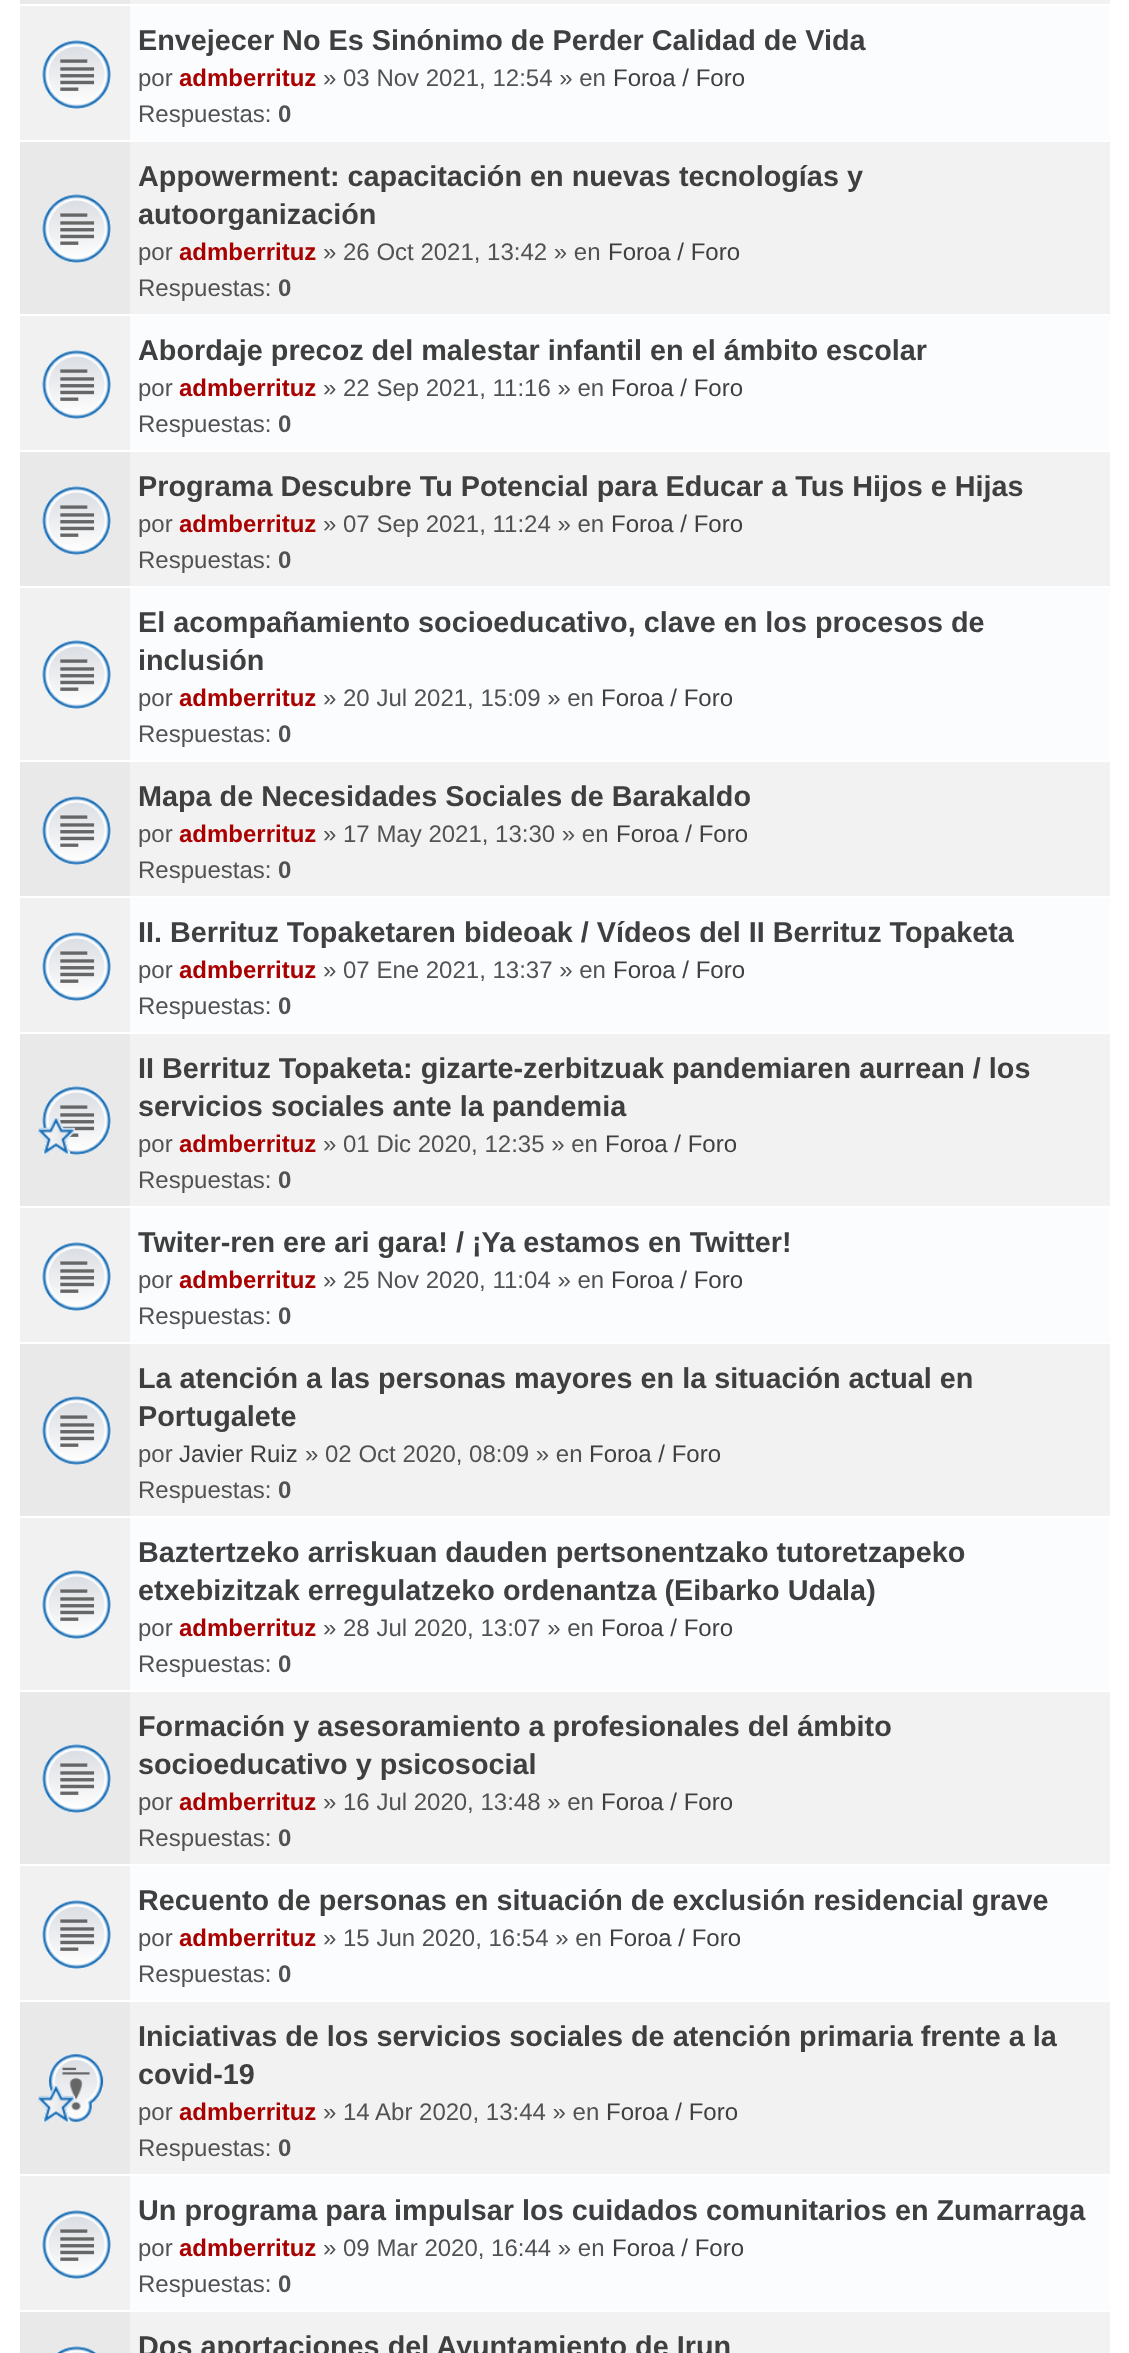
<?xml version="1.0" encoding="UTF-8"?>
<svg xmlns="http://www.w3.org/2000/svg" xmlns:xlink="http://www.w3.org/1999/xlink" width="1129" height="2353">
  <rect width="100%" height="100%" fill="#ffffff" />
  <rect x="130" y="6" width="980" height="2304" fill="#fafcfe" />
  <rect x="130" width="980" height="4" fill="#f2f2f2" />
  <rect x="20" width="110" height="4" fill="#e9e9e9" />
  <rect x="20" y="6" width="110" height="134" fill="#f1f1f1" />
  <image x="42" y="40" width="69" height="69" xlink:href="image1.png" />
  <rect x="130" y="142" width="980" height="172" fill="#f2f2f2" />
  <rect x="130" y="140" width="980" height="2" fill="#ffffff" />
  <rect x="20" y="142" width="110" height="172" fill="#e9e9e9" />
  <image x="42" y="194" width="69" height="69" xlink:href="image2.png" />
  <rect x="130" y="314" width="980" height="2" fill="#ffffff" />
  <rect x="20" y="316" width="110" height="134" fill="#f1f1f1" />
  <image x="42" y="350" width="69" height="69" xlink:href="image1.png" />
  <rect x="130" y="452" width="980" height="134" fill="#f2f2f2" />
  <rect x="130" y="450" width="980" height="2" fill="#ffffff" />
  <rect x="20" y="452" width="110" height="134" fill="#e9e9e9" />
  <image x="42" y="486" width="69" height="69" xlink:href="image3.png" />
  <rect x="130" y="586" width="980" height="2" fill="#ffffff" />
  <rect x="20" y="588" width="110" height="172" fill="#f1f1f1" />
  <image x="42" y="640" width="69" height="69" xlink:href="image1.png" />
  <rect x="130" y="762" width="980" height="134" fill="#f2f2f2" />
  <rect x="130" y="760" width="980" height="2" fill="#ffffff" />
  <rect x="20" y="762" width="110" height="134" fill="#e9e9e9" />
  <image x="42" y="796" width="69" height="69" xlink:href="image4.png" />
  <rect x="130" y="896" width="980" height="2" fill="#ffffff" />
  <rect x="20" y="898" width="110" height="134" fill="#f1f1f1" />
  <image x="42" y="932" width="69" height="69" xlink:href="image1.png" />
  <rect x="130" y="1034" width="980" height="172" fill="#f2f2f2" />
  <rect x="130" y="1032" width="980" height="2" fill="#ffffff" />
  <rect x="20" y="1034" width="110" height="172" fill="#e9e9e9" />
  <image x="42" y="1086" width="69" height="69" xlink:href="image3.png" />
  <image x="37" y="1117" width="38" height="38" xlink:href="image5.png" />
  <rect x="130" y="1206" width="980" height="2" fill="#ffffff" />
  <rect x="20" y="1208" width="110" height="134" fill="#f1f1f1" />
  <image x="42" y="1242" width="69" height="69" xlink:href="image1.png" />
  <rect x="130" y="1344" width="980" height="172" fill="#f2f2f2" />
  <rect x="130" y="1342" width="980" height="2" fill="#ffffff" />
  <rect x="20" y="1344" width="110" height="172" fill="#e9e9e9" />
  <image x="42" y="1396" width="69" height="69" xlink:href="image3.png" />
  <rect x="130" y="1516" width="980" height="2" fill="#ffffff" />
  <rect x="20" y="1518" width="110" height="172" fill="#f1f1f1" />
  <image x="42" y="1570" width="69" height="69" xlink:href="image1.png" />
  <rect x="130" y="1692" width="980" height="172" fill="#f2f2f2" />
  <rect x="130" y="1690" width="980" height="2" fill="#ffffff" />
  <rect x="20" y="1692" width="110" height="172" fill="#e9e9e9" />
  <image x="42" y="1744" width="69" height="69" xlink:href="image6.png" />
  <rect x="130" y="1864" width="980" height="2" fill="#ffffff" />
  <rect x="20" y="1866" width="110" height="134" fill="#f1f1f1" />
  <image x="42" y="1900" width="69" height="69" xlink:href="image1.png" />
  <rect x="130" y="2002" width="980" height="172" fill="#f2f2f2" />
  <rect x="130" y="2000" width="980" height="2" fill="#ffffff" />
  <rect x="20" y="2002" width="110" height="172" fill="#e9e9e9" />
  <image x="49" y="2054" width="55" height="68" xlink:href="image7.png" />
  <image x="37" y="2085" width="38" height="38" xlink:href="image8.png" />
  <rect x="130" y="2174" width="980" height="2" fill="#ffffff" />
  <rect x="20" y="2176" width="110" height="134" fill="#f1f1f1" />
  <image x="42" y="2210" width="69" height="69" xlink:href="image1.png" />
  <rect x="130" y="2312" width="980" height="41" fill="#f2f2f2" />
  <rect x="20" y="2312" width="110" height="41" fill="#e9e9e9" />
  <image x="57" y="2346" width="40" height="7" xlink:href="image9.png" />
  <text x="138" y="50" style="font-family: Liberation Sans; font-size: 28.8px; font-weight: bold; fill: #3f3f3f">Envejecer No Es Sinónimo de Perder Calidad de Vida</text>
  <text x="138" y="86" style="font-family: Liberation Sans; font-size: 24px; fill: #525252">por</text>
  <text x="179" y="86" style="font-family: Liberation Sans; font-size: 24px; font-weight: bold; fill: #aa0000">admberrituz</text>
  <text x="323" y="86" style="font-family: Liberation Sans; font-size: 24px; fill: #525252">» 03 Nov 2021, 12:54 » en</text>
  <text x="613" y="86" style="font-family: Liberation Sans; font-size: 24px; fill: #3f3f3f">Foroa / Foro</text>
  <text x="138" y="122" style="font-family: Liberation Sans; font-size: 24px; fill: #525252">Respuestas:</text>
  <text x="278" y="122" style="font-family: Liberation Sans; font-size: 24px; font-weight: bold; fill: #525252">0</text>
  <text x="138" y="186" style="font-family: Liberation Sans; font-size: 28.8px; font-weight: bold; fill: #3f3f3f">Appowerment: capacitación en nuevas tecnologías y</text>
  <text x="138" y="224" style="font-family: Liberation Sans; font-size: 28.8px; font-weight: bold; fill: #3f3f3f">autoorganización</text>
  <text x="138" y="260" style="font-family: Liberation Sans; font-size: 24px; fill: #525252">por</text>
  <text x="179" y="260" style="font-family: Liberation Sans; font-size: 24px; font-weight: bold; fill: #aa0000">admberrituz</text>
  <text x="323" y="260" style="font-family: Liberation Sans; font-size: 24px; fill: #525252">» 26 Oct 2021, 13:42 » en</text>
  <text x="608" y="260" style="font-family: Liberation Sans; font-size: 24px; fill: #3f3f3f">Foroa / Foro</text>
  <text x="138" y="296" style="font-family: Liberation Sans; font-size: 24px; fill: #525252">Respuestas:</text>
  <text x="278" y="296" style="font-family: Liberation Sans; font-size: 24px; font-weight: bold; fill: #525252">0</text>
  <text x="138" y="360" style="font-family: Liberation Sans; font-size: 28.8px; font-weight: bold; fill: #3f3f3f">Abordaje precoz del malestar infantil en el ámbito escolar</text>
  <text x="138" y="396" style="font-family: Liberation Sans; font-size: 24px; fill: #525252">por</text>
  <text x="179" y="396" style="font-family: Liberation Sans; font-size: 24px; font-weight: bold; fill: #aa0000">admberrituz</text>
  <text x="323" y="396" style="font-family: Liberation Sans; font-size: 24px; fill: #525252">» 22 Sep 2021, 11:16 » en</text>
  <text x="611" y="396" style="font-family: Liberation Sans; font-size: 24px; fill: #3f3f3f">Foroa / Foro</text>
  <text x="138" y="432" style="font-family: Liberation Sans; font-size: 24px; fill: #525252">Respuestas:</text>
  <text x="278" y="432" style="font-family: Liberation Sans; font-size: 24px; font-weight: bold; fill: #525252">0</text>
  <text x="138" y="496" style="font-family: Liberation Sans; font-size: 28.8px; font-weight: bold; fill: #3f3f3f">Programa Descubre Tu Potencial para Educar a Tus Hijos e Hijas</text>
  <text x="138" y="532" style="font-family: Liberation Sans; font-size: 24px; fill: #525252">por</text>
  <text x="179" y="532" style="font-family: Liberation Sans; font-size: 24px; font-weight: bold; fill: #aa0000">admberrituz</text>
  <text x="323" y="532" style="font-family: Liberation Sans; font-size: 24px; fill: #525252">» 07 Sep 2021, 11:24 » en</text>
  <text x="611" y="532" style="font-family: Liberation Sans; font-size: 24px; fill: #3f3f3f">Foroa / Foro</text>
  <text x="138" y="568" style="font-family: Liberation Sans; font-size: 24px; fill: #525252">Respuestas:</text>
  <text x="278" y="568" style="font-family: Liberation Sans; font-size: 24px; font-weight: bold; fill: #525252">0</text>
  <text x="138" y="632" style="font-family: Liberation Sans; font-size: 28.8px; font-weight: bold; fill: #3f3f3f">El acompañamiento socioeducativo, clave en los procesos de</text>
  <text x="138" y="670" style="font-family: Liberation Sans; font-size: 28.8px; font-weight: bold; fill: #3f3f3f">inclusión</text>
  <text x="138" y="706" style="font-family: Liberation Sans; font-size: 24px; fill: #525252">por</text>
  <text x="179" y="706" style="font-family: Liberation Sans; font-size: 24px; font-weight: bold; fill: #aa0000">admberrituz</text>
  <text x="323" y="706" style="font-family: Liberation Sans; font-size: 24px; fill: #525252">» 20 Jul 2021, 15:09 » en</text>
  <text x="601" y="706" style="font-family: Liberation Sans; font-size: 24px; fill: #3f3f3f">Foroa / Foro</text>
  <text x="138" y="742" style="font-family: Liberation Sans; font-size: 24px; fill: #525252">Respuestas:</text>
  <text x="278" y="742" style="font-family: Liberation Sans; font-size: 24px; font-weight: bold; fill: #525252">0</text>
  <text x="138" y="806" style="font-family: Liberation Sans; font-size: 28.8px; font-weight: bold; fill: #3f3f3f">Mapa de Necesidades Sociales de Barakaldo</text>
  <text x="138" y="842" style="font-family: Liberation Sans; font-size: 24px; fill: #525252">por</text>
  <text x="179" y="842" style="font-family: Liberation Sans; font-size: 24px; font-weight: bold; fill: #aa0000">admberrituz</text>
  <text x="323" y="842" style="font-family: Liberation Sans; font-size: 24px; fill: #525252">» 17 May 2021, 13:30 » en</text>
  <text x="616" y="842" style="font-family: Liberation Sans; font-size: 24px; fill: #3f3f3f">Foroa / Foro</text>
  <text x="138" y="878" style="font-family: Liberation Sans; font-size: 24px; fill: #525252">Respuestas:</text>
  <text x="278" y="878" style="font-family: Liberation Sans; font-size: 24px; font-weight: bold; fill: #525252">0</text>
  <text x="138" y="942" style="font-family: Liberation Sans; font-size: 28.8px; font-weight: bold; fill: #3f3f3f">II. Berrituz Topaketaren bideoak / Vídeos del II Berrituz Topaketa</text>
  <text x="138" y="978" style="font-family: Liberation Sans; font-size: 24px; fill: #525252">por</text>
  <text x="179" y="978" style="font-family: Liberation Sans; font-size: 24px; font-weight: bold; fill: #aa0000">admberrituz</text>
  <text x="323" y="978" style="font-family: Liberation Sans; font-size: 24px; fill: #525252">» 07 Ene 2021, 13:37 » en</text>
  <text x="613" y="978" style="font-family: Liberation Sans; font-size: 24px; fill: #3f3f3f">Foroa / Foro</text>
  <text x="138" y="1014" style="font-family: Liberation Sans; font-size: 24px; fill: #525252">Respuestas:</text>
  <text x="278" y="1014" style="font-family: Liberation Sans; font-size: 24px; font-weight: bold; fill: #525252">0</text>
  <text x="138" y="1078" style="font-family: Liberation Sans; font-size: 28.8px; font-weight: bold; fill: #3f3f3f">II Berrituz Topaketa: gizarte-zerbitzuak pandemiaren aurrean / los</text>
  <text x="138" y="1116" style="font-family: Liberation Sans; font-size: 28.8px; font-weight: bold; fill: #3f3f3f">servicios sociales ante la pandemia</text>
  <text x="138" y="1152" style="font-family: Liberation Sans; font-size: 24px; fill: #525252">por</text>
  <text x="179" y="1152" style="font-family: Liberation Sans; font-size: 24px; font-weight: bold; fill: #aa0000">admberrituz</text>
  <text x="323" y="1152" style="font-family: Liberation Sans; font-size: 24px; fill: #525252">» 01 Dic 2020, 12:35 » en</text>
  <text x="605" y="1152" style="font-family: Liberation Sans; font-size: 24px; fill: #3f3f3f">Foroa / Foro</text>
  <text x="138" y="1188" style="font-family: Liberation Sans; font-size: 24px; fill: #525252">Respuestas:</text>
  <text x="278" y="1188" style="font-family: Liberation Sans; font-size: 24px; font-weight: bold; fill: #525252">0</text>
  <text x="138" y="1252" style="font-family: Liberation Sans; font-size: 28.8px; font-weight: bold; fill: #3f3f3f">Twiter-ren ere ari gara! / ¡Ya estamos en Twitter!</text>
  <text x="138" y="1288" style="font-family: Liberation Sans; font-size: 24px; fill: #525252">por</text>
  <text x="179" y="1288" style="font-family: Liberation Sans; font-size: 24px; font-weight: bold; fill: #aa0000">admberrituz</text>
  <text x="323" y="1288" style="font-family: Liberation Sans; font-size: 24px; fill: #525252">» 25 Nov 2020, 11:04 » en</text>
  <text x="611" y="1288" style="font-family: Liberation Sans; font-size: 24px; fill: #3f3f3f">Foroa / Foro</text>
  <text x="138" y="1324" style="font-family: Liberation Sans; font-size: 24px; fill: #525252">Respuestas:</text>
  <text x="278" y="1324" style="font-family: Liberation Sans; font-size: 24px; font-weight: bold; fill: #525252">0</text>
  <text x="138" y="1388" style="font-family: Liberation Sans; font-size: 28.8px; font-weight: bold; fill: #3f3f3f">La atención a las personas mayores en la situación actual en</text>
  <text x="138" y="1426" style="font-family: Liberation Sans; font-size: 28.8px; font-weight: bold; fill: #3f3f3f">Portugalete</text>
  <text x="138" y="1462" style="font-family: Liberation Sans; font-size: 24px; fill: #525252">por</text>
  <text x="179" y="1462" style="font-family: Liberation Sans; font-size: 24px; fill: #3f3f3f">Javier Ruiz</text>
  <text x="305" y="1462" style="font-family: Liberation Sans; font-size: 24px; fill: #525252">» 02 Oct 2020, 08:09 » en</text>
  <text x="589" y="1462" style="font-family: Liberation Sans; font-size: 24px; fill: #3f3f3f">Foroa / Foro</text>
  <text x="138" y="1498" style="font-family: Liberation Sans; font-size: 24px; fill: #525252">Respuestas:</text>
  <text x="278" y="1498" style="font-family: Liberation Sans; font-size: 24px; font-weight: bold; fill: #525252">0</text>
  <text x="138" y="1562" style="font-family: Liberation Sans; font-size: 28.8px; font-weight: bold; fill: #3f3f3f">Baztertzeko arriskuan dauden pertsonentzako tutoretzapeko</text>
  <text x="138" y="1600" style="font-family: Liberation Sans; font-size: 28.8px; font-weight: bold; fill: #3f3f3f">etxebizitzak erregulatzeko ordenantza (Eibarko Udala)</text>
  <text x="138" y="1636" style="font-family: Liberation Sans; font-size: 24px; fill: #525252">por</text>
  <text x="179" y="1636" style="font-family: Liberation Sans; font-size: 24px; font-weight: bold; fill: #aa0000">admberrituz</text>
  <text x="323" y="1636" style="font-family: Liberation Sans; font-size: 24px; fill: #525252">» 28 Jul 2020, 13:07 » en</text>
  <text x="601" y="1636" style="font-family: Liberation Sans; font-size: 24px; fill: #3f3f3f">Foroa / Foro</text>
  <text x="138" y="1672" style="font-family: Liberation Sans; font-size: 24px; fill: #525252">Respuestas:</text>
  <text x="278" y="1672" style="font-family: Liberation Sans; font-size: 24px; font-weight: bold; fill: #525252">0</text>
  <text x="138" y="1736" style="font-family: Liberation Sans; font-size: 28.8px; font-weight: bold; fill: #3f3f3f">Formación y asesoramiento a profesionales del ámbito</text>
  <text x="138" y="1774" style="font-family: Liberation Sans; font-size: 28.8px; font-weight: bold; fill: #3f3f3f">socioeducativo y psicosocial</text>
  <text x="138" y="1810" style="font-family: Liberation Sans; font-size: 24px; fill: #525252">por</text>
  <text x="179" y="1810" style="font-family: Liberation Sans; font-size: 24px; font-weight: bold; fill: #aa0000">admberrituz</text>
  <text x="323" y="1810" style="font-family: Liberation Sans; font-size: 24px; fill: #525252">» 16 Jul 2020, 13:48 » en</text>
  <text x="601" y="1810" style="font-family: Liberation Sans; font-size: 24px; fill: #3f3f3f">Foroa / Foro</text>
  <text x="138" y="1846" style="font-family: Liberation Sans; font-size: 24px; fill: #525252">Respuestas:</text>
  <text x="278" y="1846" style="font-family: Liberation Sans; font-size: 24px; font-weight: bold; fill: #525252">0</text>
  <text x="138" y="1910" style="font-family: Liberation Sans; font-size: 28.8px; font-weight: bold; fill: #3f3f3f">Recuento de personas en situación de exclusión residencial grave</text>
  <text x="138" y="1946" style="font-family: Liberation Sans; font-size: 24px; fill: #525252">por</text>
  <text x="179" y="1946" style="font-family: Liberation Sans; font-size: 24px; font-weight: bold; fill: #aa0000">admberrituz</text>
  <text x="323" y="1946" style="font-family: Liberation Sans; font-size: 24px; fill: #525252">» 15 Jun 2020, 16:54 » en</text>
  <text x="609" y="1946" style="font-family: Liberation Sans; font-size: 24px; fill: #3f3f3f">Foroa / Foro</text>
  <text x="138" y="1982" style="font-family: Liberation Sans; font-size: 24px; fill: #525252">Respuestas:</text>
  <text x="278" y="1982" style="font-family: Liberation Sans; font-size: 24px; font-weight: bold; fill: #525252">0</text>
  <text x="138" y="2046" style="font-family: Liberation Sans; font-size: 28.8px; font-weight: bold; fill: #3f3f3f">Iniciativas de los servicios sociales de atención primaria frente a la</text>
  <text x="138" y="2084" style="font-family: Liberation Sans; font-size: 28.8px; font-weight: bold; fill: #3f3f3f">covid-19</text>
  <text x="138" y="2120" style="font-family: Liberation Sans; font-size: 24px; fill: #525252">por</text>
  <text x="179" y="2120" style="font-family: Liberation Sans; font-size: 24px; font-weight: bold; fill: #aa0000">admberrituz</text>
  <text x="323" y="2120" style="font-family: Liberation Sans; font-size: 24px; fill: #525252">» 14 Abr 2020, 13:44 » en</text>
  <text x="606" y="2120" style="font-family: Liberation Sans; font-size: 24px; fill: #3f3f3f">Foroa / Foro</text>
  <text x="138" y="2156" style="font-family: Liberation Sans; font-size: 24px; fill: #525252">Respuestas:</text>
  <text x="278" y="2156" style="font-family: Liberation Sans; font-size: 24px; font-weight: bold; fill: #525252">0</text>
  <text x="138" y="2220" style="font-family: Liberation Sans; font-size: 28.8px; font-weight: bold; fill: #3f3f3f">Un programa para impulsar los cuidados comunitarios en Zumarraga</text>
  <text x="138" y="2256" style="font-family: Liberation Sans; font-size: 24px; fill: #525252">por</text>
  <text x="179" y="2256" style="font-family: Liberation Sans; font-size: 24px; font-weight: bold; fill: #aa0000">admberrituz</text>
  <text x="323" y="2256" style="font-family: Liberation Sans; font-size: 24px; fill: #525252">» 09 Mar 2020, 16:44 » en</text>
  <text x="612" y="2256" style="font-family: Liberation Sans; font-size: 24px; fill: #3f3f3f">Foroa / Foro</text>
  <text x="138" y="2292" style="font-family: Liberation Sans; font-size: 24px; fill: #525252">Respuestas:</text>
  <text x="278" y="2292" style="font-family: Liberation Sans; font-size: 24px; font-weight: bold; fill: #525252">0</text>
  <text x="138" y="2356" style="font-family: Liberation Sans; font-size: 28.8px; font-weight: bold; fill: #3f3f3f">Dos aportaciones del Ayuntamiento de Irun</text>
</svg>
